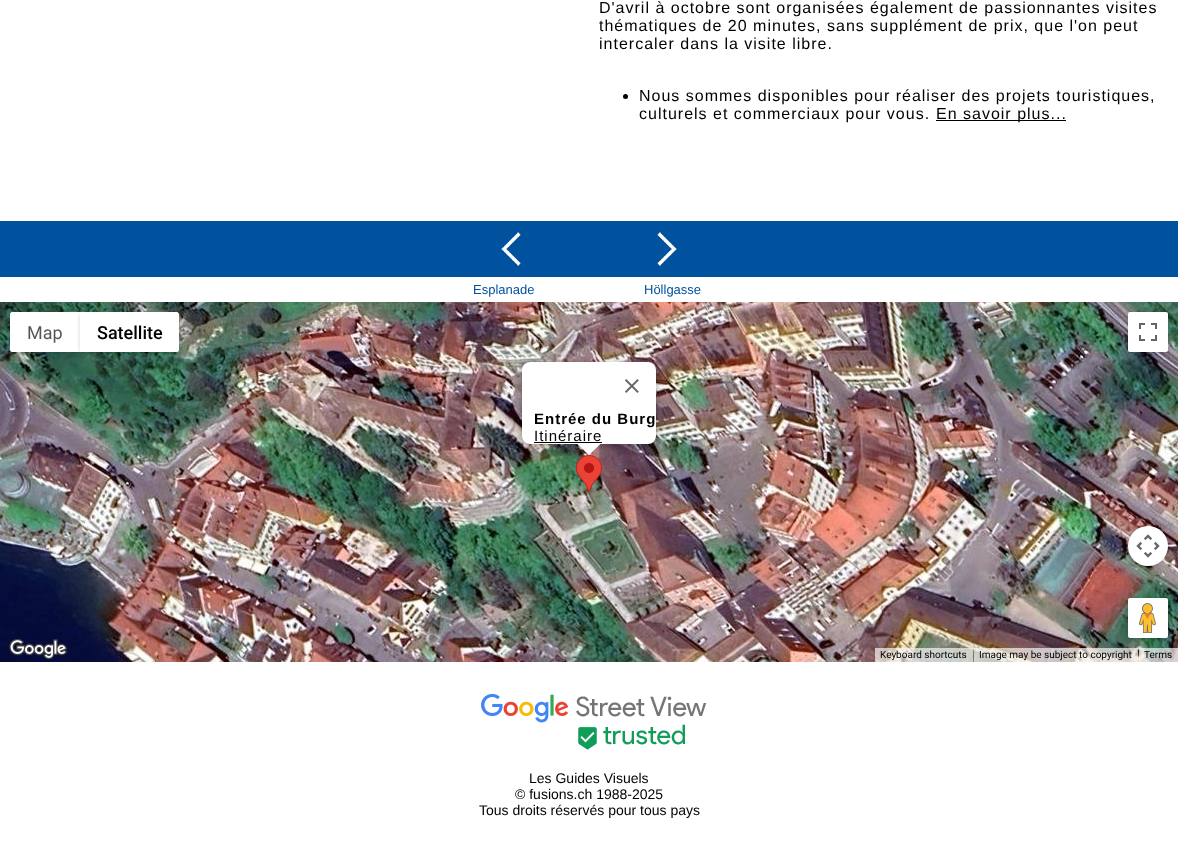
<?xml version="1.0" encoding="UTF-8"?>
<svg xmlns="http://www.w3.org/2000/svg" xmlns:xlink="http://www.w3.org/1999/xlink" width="1178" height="854">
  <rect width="100%" height="100%" fill="#ffffff" />
  <circle cx="625.5" cy="96.5" r="2.5" fill="#000000" />
  <rect x="936" y="120" width="130" height="1" fill="#000000" />
  <rect y="221" width="1178" height="56" fill="#00519e" />
  <image x="501" y="231" width="20" height="36" xlink:href="image1.png" />
  <image x="657" y="232" width="20" height="35" xlink:href="image2.png" />
  <image x="0" y="302" width="247" height="108" xlink:href="image4.png" />
  <rect x="11" y="314" width="68" height="38" rx="1" fill="#000000" fill-opacity="0.3" filter="blur(2px)" />
  <path d="M 12 312 h 68 v 40 h -68 c -1 0 -2 -1 -2 -2 v -36 c 0 -1 1 -2 2 -2 z" fill="#ffffff" />
  <rect x="81" y="314" width="97" height="38" rx="1" fill="#000000" fill-opacity="0.3" filter="blur(2px)" />
  <path d="M 80 312 h 97 c 1 0 2 1 2 2 v 36 c 0 1 -1 2 -2 2 h -97 z" fill="#ffffff" />
  <image x="1015" y="302" width="163" height="108" xlink:href="image8.png" />
  <rect x="1129" y="314" width="38" height="38" rx="1" fill="#000000" fill-opacity="0.3" filter="blur(2px)" />
  <rect x="1128" y="312" width="40" height="40" rx="2" fill="#ffffff" />
  <image x="1139" y="323" width="18" height="18" xlink:href="image3.png" />
  <image x="247" y="302" width="256" height="108" xlink:href="image5.png" />
  <image x="503" y="302" width="256" height="108" xlink:href="image6.png" />
  <image x="759" y="302" width="256" height="108" xlink:href="image7.png" />
  <image x="0" y="410" width="247" height="252" xlink:href="image9.png" />
  <image x="247" y="410" width="256" height="252" xlink:href="image10.png" />
  <image x="503" y="410" width="256" height="252" xlink:href="image11.png" />
  <image x="759" y="410" width="256" height="252" xlink:href="image12.png" />
  <image x="1015" y="410" width="163" height="252" xlink:href="image13.png" />
  <image x="576" y="455" width="26" height="37" xlink:href="image14.png" />
  <rect x="521" y="363" width="136" height="84" rx="9" fill="#000000" fill-opacity="0.3" filter="blur(3.5px)" />
  <rect x="522" y="362" width="134" height="82" rx="8" fill="#ffffff" />
  <image x="625" y="379" width="14" height="14" xlink:href="image15.png" />
  <rect x="534" y="442" width="68" height="1" fill="#000000" />
  <path d="M 577 443 v 0.5 l 12 11.5 l 12.5 -12 z" fill="#ffffff" />
  <rect x="1129" y="528" width="38" height="38" rx="19" fill="#000000" fill-opacity="0.3" filter="blur(2px)" />
  <circle cx="1148" cy="546" r="20" fill="#ffffff" />
  <image x="1136" y="534" width="24" height="24" xlink:href="image16.png" />
  <rect x="1129" y="600" width="38" height="38" rx="1" fill="#000000" fill-opacity="0.3" filter="blur(2px)" />
  <rect x="1128" y="598" width="40" height="40" rx="2" fill="#ffffff" />
  <image x="1139" y="603" width="17" height="30" xlink:href="image17.png" />
  <image x="9" y="638" width="59" height="22" xlink:href="image18.png" />
  <rect x="875" y="648" width="98" height="14" fill="#f5f5f5" fill-opacity="0.7" />
  <rect x="974" y="648" width="164" height="14" fill="#f5f5f5" fill-opacity="0.7" />
  <rect x="1139" y="648" width="39" height="14" fill="#f5f5f5" fill-opacity="0.7" />
  <image x="481" y="693" width="226" height="57" xlink:href="image19.png" />
  <text x="599" y="13" style="font-family: Liberation Sans; font-size: 16px; letter-spacing: 1px; fill: #000000">D'avril à octobre sont organisées également de passionnantes visites</text>
  <text x="599" y="31" style="font-family: Liberation Sans; font-size: 16px; letter-spacing: 1px; fill: #000000">thématiques de 20 minutes, sans supplément de prix, que l'on peut</text>
  <text x="599" y="49" style="font-family: Liberation Sans; font-size: 16px; letter-spacing: 1px; fill: #000000">intercaler dans la visite libre.</text>
  <text x="639" y="101" style="font-family: Liberation Sans; font-size: 16px; letter-spacing: 1px; fill: #000000">Nous sommes disponibles pour réaliser des projets touristiques,</text>
  <text x="639" y="119" style="font-family: Liberation Sans; font-size: 16px; letter-spacing: 1px; fill: #000000">culturels et commerciaux pour vous.</text>
  <text x="936" y="119" style="font-family: Liberation Sans; font-size: 16px; letter-spacing: 1px; fill: #000000">En savoir plus...</text>
  <text x="473" y="294" style="font-family: Liberation Sans; font-size: 13px; fill: #00519e">Esplanade</text>
  <text x="644" y="294" style="font-family: Liberation Sans; font-size: 13px; fill: #00519e">Höllgasse</text>
  <text x="27" y="339" style="font-family: Roboto; font-size: 18px; fill: #565656">Map</text>
  <text x="97" y="339" style="font-family: Roboto; font-size: 18px; font-weight: 500; fill: #000000">Satellite</text>
  <text x="534" y="424" style="font-family: Liberation Sans; font-size: 15px; font-weight: bold; letter-spacing: 1px; fill: #000000">Entrée du Burg</text>
  <text x="534" y="441" style="font-family: Liberation Sans; font-size: 15px; letter-spacing: 1px; fill: #000000">Itinéraire</text>
  <text x="880" y="658" style="font-family: Roboto; font-size: 10px; fill: #000000">Keyboard shortcuts</text>
  <text x="979" y="658" style="font-family: Roboto; font-size: 10px; fill: #000000">Image may be subject to copyright</text>
  <text x="1144" y="658" style="font-family: Roboto; font-size: 10px; fill: #000000">Terms</text>
  <text x="529" y="783" style="font-family: Liberation Sans; font-size: 14px; fill: #000000">Les Guides Visuels</text>
  <text x="515" y="799" style="font-family: Liberation Sans; font-size: 14px; fill: #000000">© fusions.ch 1988-2025</text>
  <text x="479" y="815" style="font-family: Liberation Sans; font-size: 14px; fill: #000000">Tous droits réservés pour tous pays</text>
</svg>
